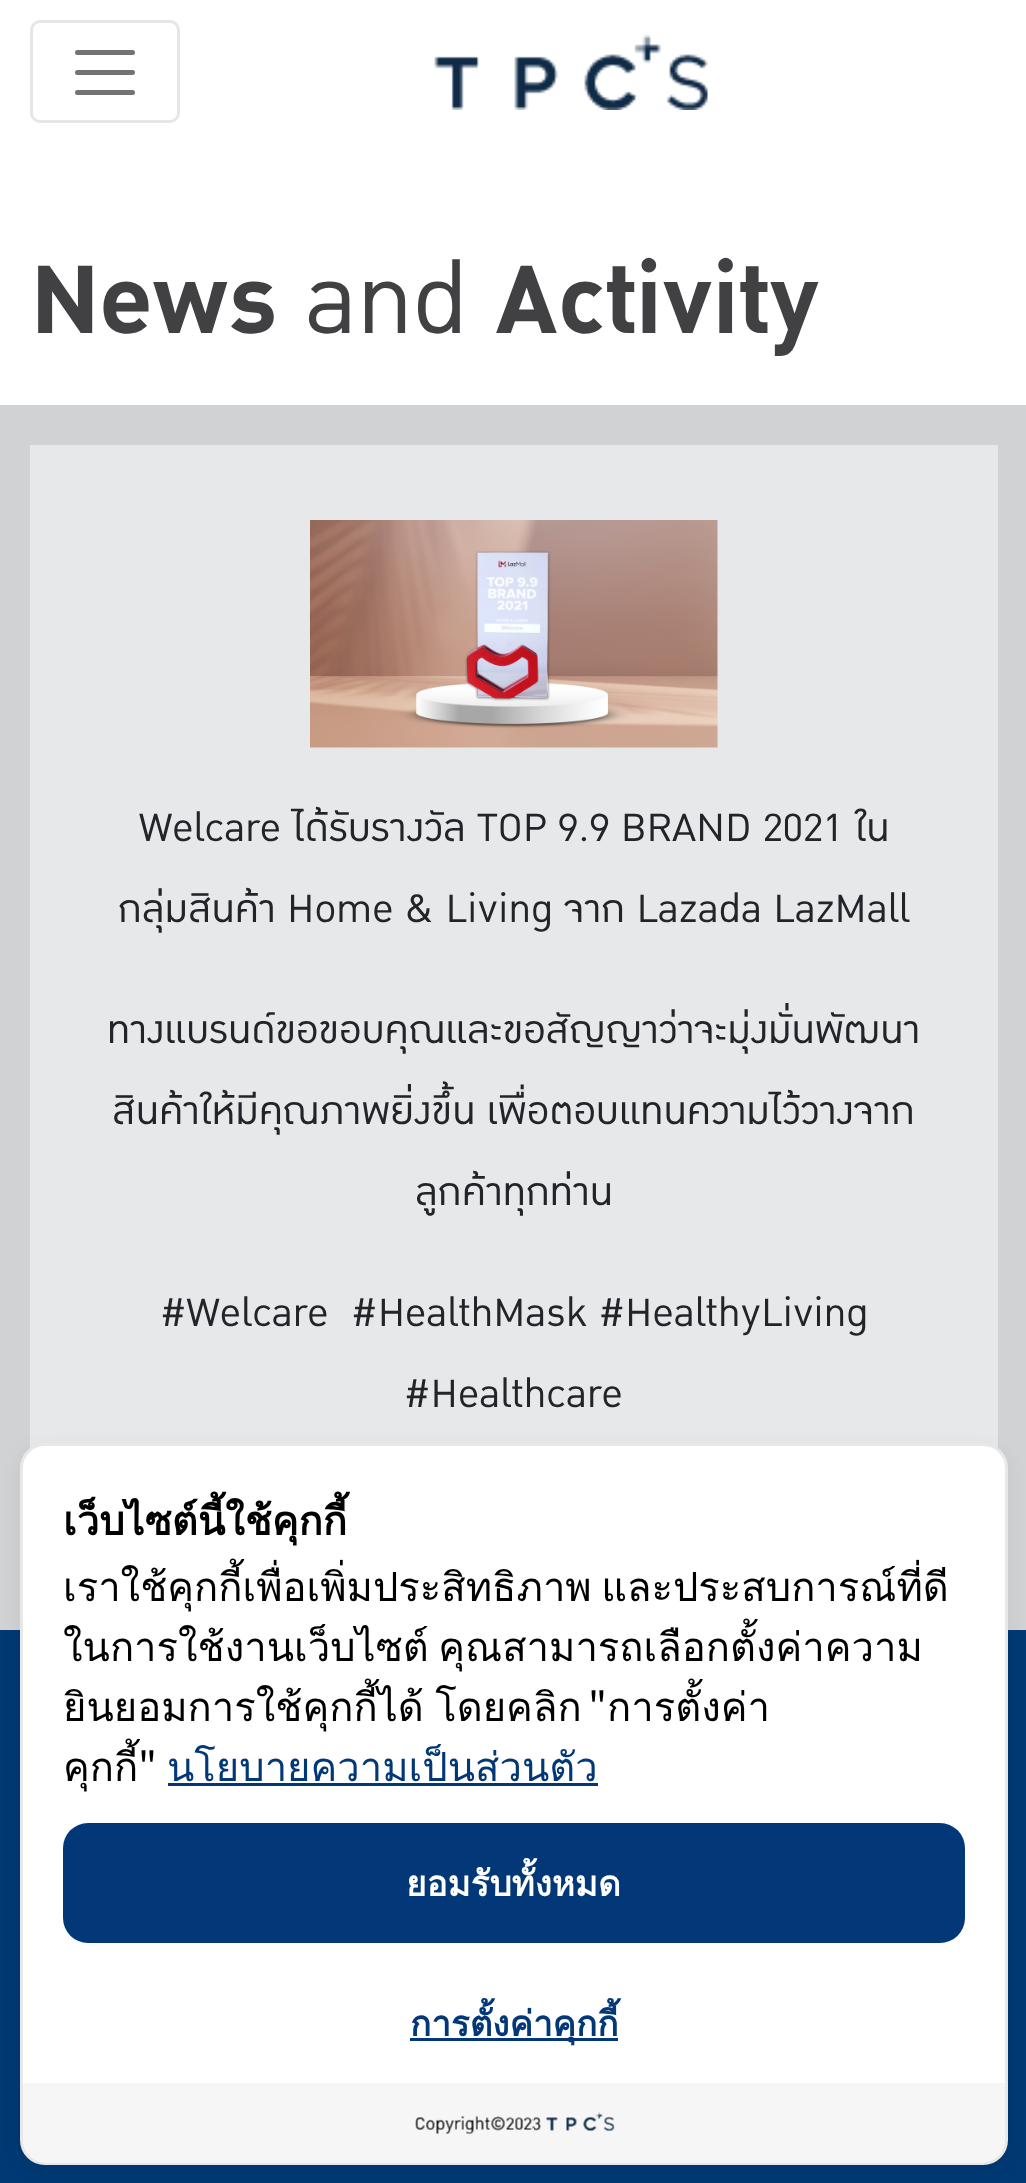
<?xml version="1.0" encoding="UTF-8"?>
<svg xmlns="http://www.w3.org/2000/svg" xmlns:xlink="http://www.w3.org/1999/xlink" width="1026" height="2183">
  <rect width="100%" height="100%" fill="#ffffff" />
  <rect x="31.5" y="21.5" width="147" height="100" rx="8.5" fill="none" stroke="#e6e6e6" stroke-width="3" />
  <path d="M 77.5 52.5 h 55 m -55 20 h 55 m -55 20 h 55" fill="none" stroke="#737373" stroke-width="5" stroke-linecap="round" />
  <image x="434" y="35" width="274" height="75" xlink:href="image1.png" />
  <rect y="405" width="1026" height="1225" fill="#d1d2d4" />
  <rect x="30" y="445" width="968" height="1003" fill="#e7e8ea" />
  <image x="310" y="520" width="408" height="228" xlink:href="image2.png" />
  <rect y="1630" width="1026" height="553" fill="#003974" />
  <rect x="20" y="1448" width="988" height="722" rx="25" fill="#000000" fill-opacity="0.05" filter="blur(10px)" />
  <rect x="21.5" y="1444.5" width="985" height="719" rx="23.5" fill="#ffffff" stroke="#e8e8e8" stroke-width="3" />
  <rect x="168" y="1783" width="430" height="3" fill="#023878" />
  <rect x="63" y="1823" width="902" height="120" rx="25" fill="#023878" />
  <rect x="410" y="2038" width="208" height="3" fill="#023878" />
  <path d="M 23 2083 h 982 v 55 c 0 14 -11 25 -25 25 h -932 c -14 0 -25 -11 -25 -25 z" fill="#f6f6f6" />
  <image x="415" y="2112" width="200" height="22" xlink:href="image3.png" />
  <text x="30" y="333" style="font-family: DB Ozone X; font-size: 134px; font-weight: bold; fill: #414042">News</text>
  <text x="305" y="333" style="font-family: DB Ozone X; font-size: 134px; fill: #414042">and</text>
  <text x="496" y="333" style="font-family: DB Ozone X; font-size: 134px; font-weight: bold; fill: #414042">Activity</text>
  <text x="139" y="841" style="font-family: DB Ozone X; font-size: 54px; fill: #212529">Welcare ได้รับรางวัล TOP 9.9 BRAND 2021 ใน</text>
  <text x="118" y="922" style="font-family: DB Ozone X; font-size: 54px; fill: #212529">กลุ่มสินค้า Home &amp; Living จาก Lazada LazMall</text>
  <text x="107" y="1043" style="font-family: DB Ozone X; font-size: 54px; fill: #212529">ทางแบรนด์ขอขอบคุณและขอสัญญาว่าจะมุ่งมั่นพัฒนา</text>
  <text x="112" y="1124" style="font-family: DB Ozone X; font-size: 54px; fill: #212529">สินค้าให้มีคุณภาพยิ่งขึ้น เพื่อตอบแทนความไว้วางจาก</text>
  <text x="415" y="1205" style="font-family: DB Ozone X; font-size: 54px; fill: #212529">ลูกค้าทุกท่าน</text>
  <text x="160" y="1326" style="font-family: DB Ozone X; font-size: 54px; fill: #212529" xml:space="preserve">#Welcare  #HealthMask #HealthyLiving</text>
  <text x="404" y="1407" style="font-family: DB Ozone X; font-size: 54px; fill: #212529">#Healthcare</text>
  <text x="63" y="1535" style="font-family: Loma; font-size: 40px; font-weight: bold; fill: #000000">เว็บไซต์นี้ใช้คุกกี้</text>
  <text x="63" y="1601" word-spacing="-4" style="font-family: Loma; font-size: 40px; fill: #000000">เราใช้คุกกี้เพื่อเพิ่มประสิทธิภาพ และประสบการณ์ที่ดี</text>
  <text x="63" y="1661" word-spacing="-4" style="font-family: Loma; font-size: 40px; fill: #000000">ในการใช้งานเว็บไซต์ คุณสามารถเลือกตั้งค่าความ</text>
  <text x="63" y="1721" word-spacing="-2" style="font-family: Loma; font-size: 40px; fill: #000000">ยินยอมการใช้คุกกี้ได้ โดยคลิก</text>
  <text x="588" y="1721" style="font-family: Noto Sans JP; font-size: 40px; fill: #000000">"</text>
  <text x="607" y="1721" style="font-family: Loma; font-size: 40px; fill: #000000">การตั้งค่า</text>
  <text x="63" y="1781" style="font-family: Loma; font-size: 40px; fill: #000000">คุกกี้</text>
  <text x="138" y="1781" style="font-family: Noto Sans JP; font-size: 40px; fill: #000000">"</text>
  <text x="167" y="1781" style="font-family: Loma; font-size: 40px; fill: #023878">นโยบายความเป็นส่วนตัว</text>
  <text x="406" y="1896" style="font-family: Loma; font-size: 35px; font-weight: bold; fill: #ffffff">ยอมรับทั้งหมด</text>
  <text x="410" y="2036" style="font-family: Loma; font-size: 35px; font-weight: bold; fill: #023878">การตั้งค่าคุกกี้</text>
</svg>
